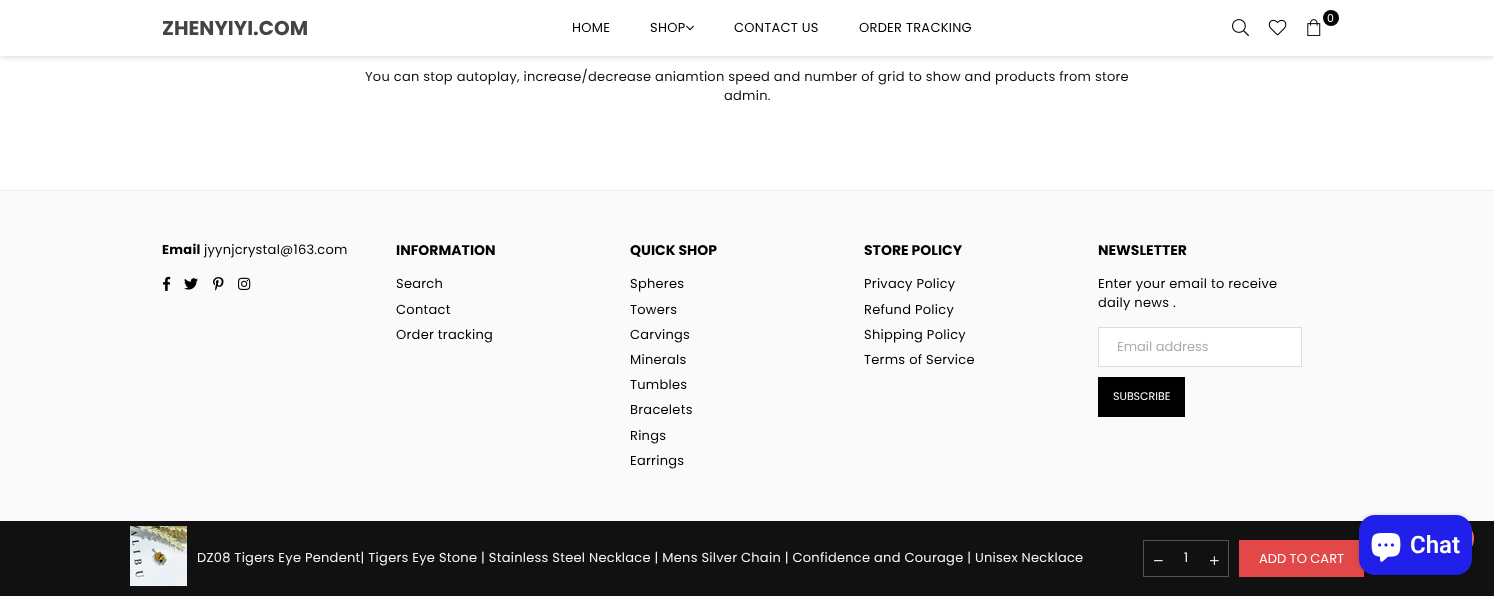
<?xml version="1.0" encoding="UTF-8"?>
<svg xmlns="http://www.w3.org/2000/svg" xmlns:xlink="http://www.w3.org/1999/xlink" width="1494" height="596">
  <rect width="100%" height="100%" fill="#ffffff" />
  <rect width="1494" height="56" fill="#000000" fill-opacity="0.2" filter="blur(3.5px)" />
  <rect width="1494" height="56" fill="#ffffff" />
  <circle cx="1331" cy="18" r="8" fill="#030505" />
  <image x="1307" y="19" width="14" height="17" xlink:href="image1.png" />
  <image x="1232" y="19" width="17" height="17" xlink:href="image2.png" />
  <image x="1268" y="19" width="19" height="17" xlink:href="image3.png" />
  <image x="686" y="25" width="8" height="6" xlink:href="image4.png" />
  <rect y="521" width="1494" height="75" fill="#111111" />
  <image x="130" y="526" width="57" height="60" xlink:href="image5.png" />
  <rect x="1143.5" y="540.5" width="85" height="36" fill="none" stroke="#535353" />
  <image x="1154" y="560" width="9" height="2" xlink:href="image6.png" />
  <image x="1210" y="556" width="9" height="9" xlink:href="image7.png" />
  <rect x="1239" y="540" width="125" height="37" fill="#e34848" />
  <rect y="191" width="1494" height="330" fill="#fafafa" />
  <rect y="190" width="1494" height="1" fill="#eeeeee" />
  <image x="163" y="276" width="8" height="15" xlink:href="image8.png" />
  <image x="184" y="278" width="14" height="12" xlink:href="image9.png" />
  <image x="213" y="277" width="11" height="14" xlink:href="image10.png" />
  <image x="238" y="277" width="13" height="13" xlink:href="image11.png" />
  <rect x="1098.5" y="327.5" width="203" height="39" fill="#ffffff" stroke="#dddddd" />
  <rect x="1098" y="377" width="87" height="40" fill="#000000" />
  <circle cx="1456.5" cy="538.5" r="17.5" fill="#f77575" />
  <rect x="1359" y="515" width="113" height="60" rx="16" fill="#000000" fill-opacity="0.15" filter="blur(2.5px)" />
  <rect x="1359" y="515" width="113" height="60" rx="16" fill="#2020ea" />
  <image x="1371" y="533" width="30" height="29" xlink:href="image12.png" />
  <text x="1327" y="22" style="font-family: Poppins; font-size: 11px; letter-spacing: 0.26px; fill: #ffffff">0</text>
  <text x="162" y="35" style="font-family: Poppins; font-size: 20px; font-weight: bold; fill: #444444">ZHENYIYI.COM</text>
  <text x="572" y="32" style="font-family: Poppins; font-size: 13px; letter-spacing: 0.26px; fill: #000000">HOME</text>
  <text x="650" y="32" style="font-family: Poppins; font-size: 13px; letter-spacing: 0.26px; fill: #000000">SHOP</text>
  <text x="734" y="32" style="font-family: Poppins; font-size: 13px; letter-spacing: 0.26px; fill: #000000">CONTACT US</text>
  <text x="859" y="32" style="font-family: Poppins; font-size: 13px; letter-spacing: 0.26px; fill: #000000">ORDER TRACKING</text>
  <text x="365" y="81" style="font-family: Poppins; font-size: 13px; letter-spacing: 0.26px; fill: #111111">You can stop autoplay, increase/decrease aniamtion speed and number of grid to show and products from store</text>
  <text x="724" y="100" style="font-family: Poppins; font-size: 13px; letter-spacing: 0.26px; fill: #111111">admin.</text>
  <text x="197" y="562" style="font-family: Poppins; font-size: 13px; letter-spacing: 0.26px; fill: #f5f5f5">DZ08 Tigers Eye Pendent| Tigers Eye Stone | Stainless Steel Necklace | Mens Silver Chain | Confidence and Courage | Unisex Necklace</text>
  <text x="1184" y="562" style="font-family: Poppins; font-size: 13px; fill: #f5f5f5">1</text>
  <text x="1259" y="563" style="font-family: Poppins; font-size: 13px; fill: #ffffff">ADD TO CART</text>
  <text x="162" y="254" style="font-family: Poppins; font-size: 13px; font-weight: bold; letter-spacing: 0.26px; fill: #000000">Email</text>
  <text x="204" y="254" style="font-family: Poppins; font-size: 13px; letter-spacing: 0.26px; fill: #000000">jyynjcrystal@163.com</text>
  <text x="396" y="255" style="font-family: Poppins; font-size: 14px; font-weight: bold; fill: #000000">INFORMATION</text>
  <text x="396" y="288" style="font-family: Poppins; font-size: 13px; letter-spacing: 0.26px; fill: #000000">Search</text>
  <text x="396" y="314" style="font-family: Poppins; font-size: 13px; letter-spacing: 0.26px; fill: #000000">Contact</text>
  <text x="396" y="339" style="font-family: Poppins; font-size: 13px; letter-spacing: 0.26px; fill: #000000">Order tracking</text>
  <text x="630" y="255" style="font-family: Poppins; font-size: 14px; font-weight: bold; fill: #000000">QUICK SHOP</text>
  <text x="630" y="288" style="font-family: Poppins; font-size: 13px; letter-spacing: 0.26px; fill: #000000">Spheres</text>
  <text x="630" y="314" style="font-family: Poppins; font-size: 13px; letter-spacing: 0.26px; fill: #000000">Towers</text>
  <text x="630" y="339" style="font-family: Poppins; font-size: 13px; letter-spacing: 0.26px; fill: #000000">Carvings</text>
  <text x="630" y="364" style="font-family: Poppins; font-size: 13px; letter-spacing: 0.26px; fill: #000000">Minerals</text>
  <text x="630" y="389" style="font-family: Poppins; font-size: 13px; letter-spacing: 0.26px; fill: #000000">Tumbles</text>
  <text x="630" y="414" style="font-family: Poppins; font-size: 13px; letter-spacing: 0.26px; fill: #000000">Bracelets</text>
  <text x="630" y="440" style="font-family: Poppins; font-size: 13px; letter-spacing: 0.26px; fill: #000000">Rings</text>
  <text x="630" y="465" style="font-family: Poppins; font-size: 13px; letter-spacing: 0.26px; fill: #000000">Earrings</text>
  <text x="864" y="255" style="font-family: Poppins; font-size: 14px; font-weight: bold; fill: #000000">STORE POLICY</text>
  <text x="864" y="288" style="font-family: Poppins; font-size: 13px; letter-spacing: 0.26px; fill: #000000">Privacy Policy</text>
  <text x="864" y="314" style="font-family: Poppins; font-size: 13px; letter-spacing: 0.26px; fill: #000000">Refund Policy</text>
  <text x="864" y="339" style="font-family: Poppins; font-size: 13px; letter-spacing: 0.26px; fill: #000000">Shipping Policy</text>
  <text x="864" y="364" style="font-family: Poppins; font-size: 13px; letter-spacing: 0.26px; fill: #000000">Terms of Service</text>
  <text x="1098" y="255" style="font-family: Poppins; font-size: 14px; font-weight: bold; fill: #000000">NEWSLETTER</text>
  <text x="1098" y="288" style="font-family: Poppins; font-size: 13px; letter-spacing: 0.26px; fill: #000000">Enter your email to receive</text>
  <text x="1098" y="307" style="font-family: Poppins; font-size: 13px; letter-spacing: 0.26px; fill: #000000">daily news .</text>
  <text x="1117" y="351" style="font-family: Poppins; font-size: 13px; fill: #acacac">Email address</text>
  <text x="1113" y="400" style="font-family: Poppins; font-size: 11px; fill: #ffffff">SUBSCRIBE</text>
  <text x="1410" y="553" style="font-family: Roboto; font-size: 24px; font-weight: 600; fill: #ffffff">Chat</text>
</svg>
